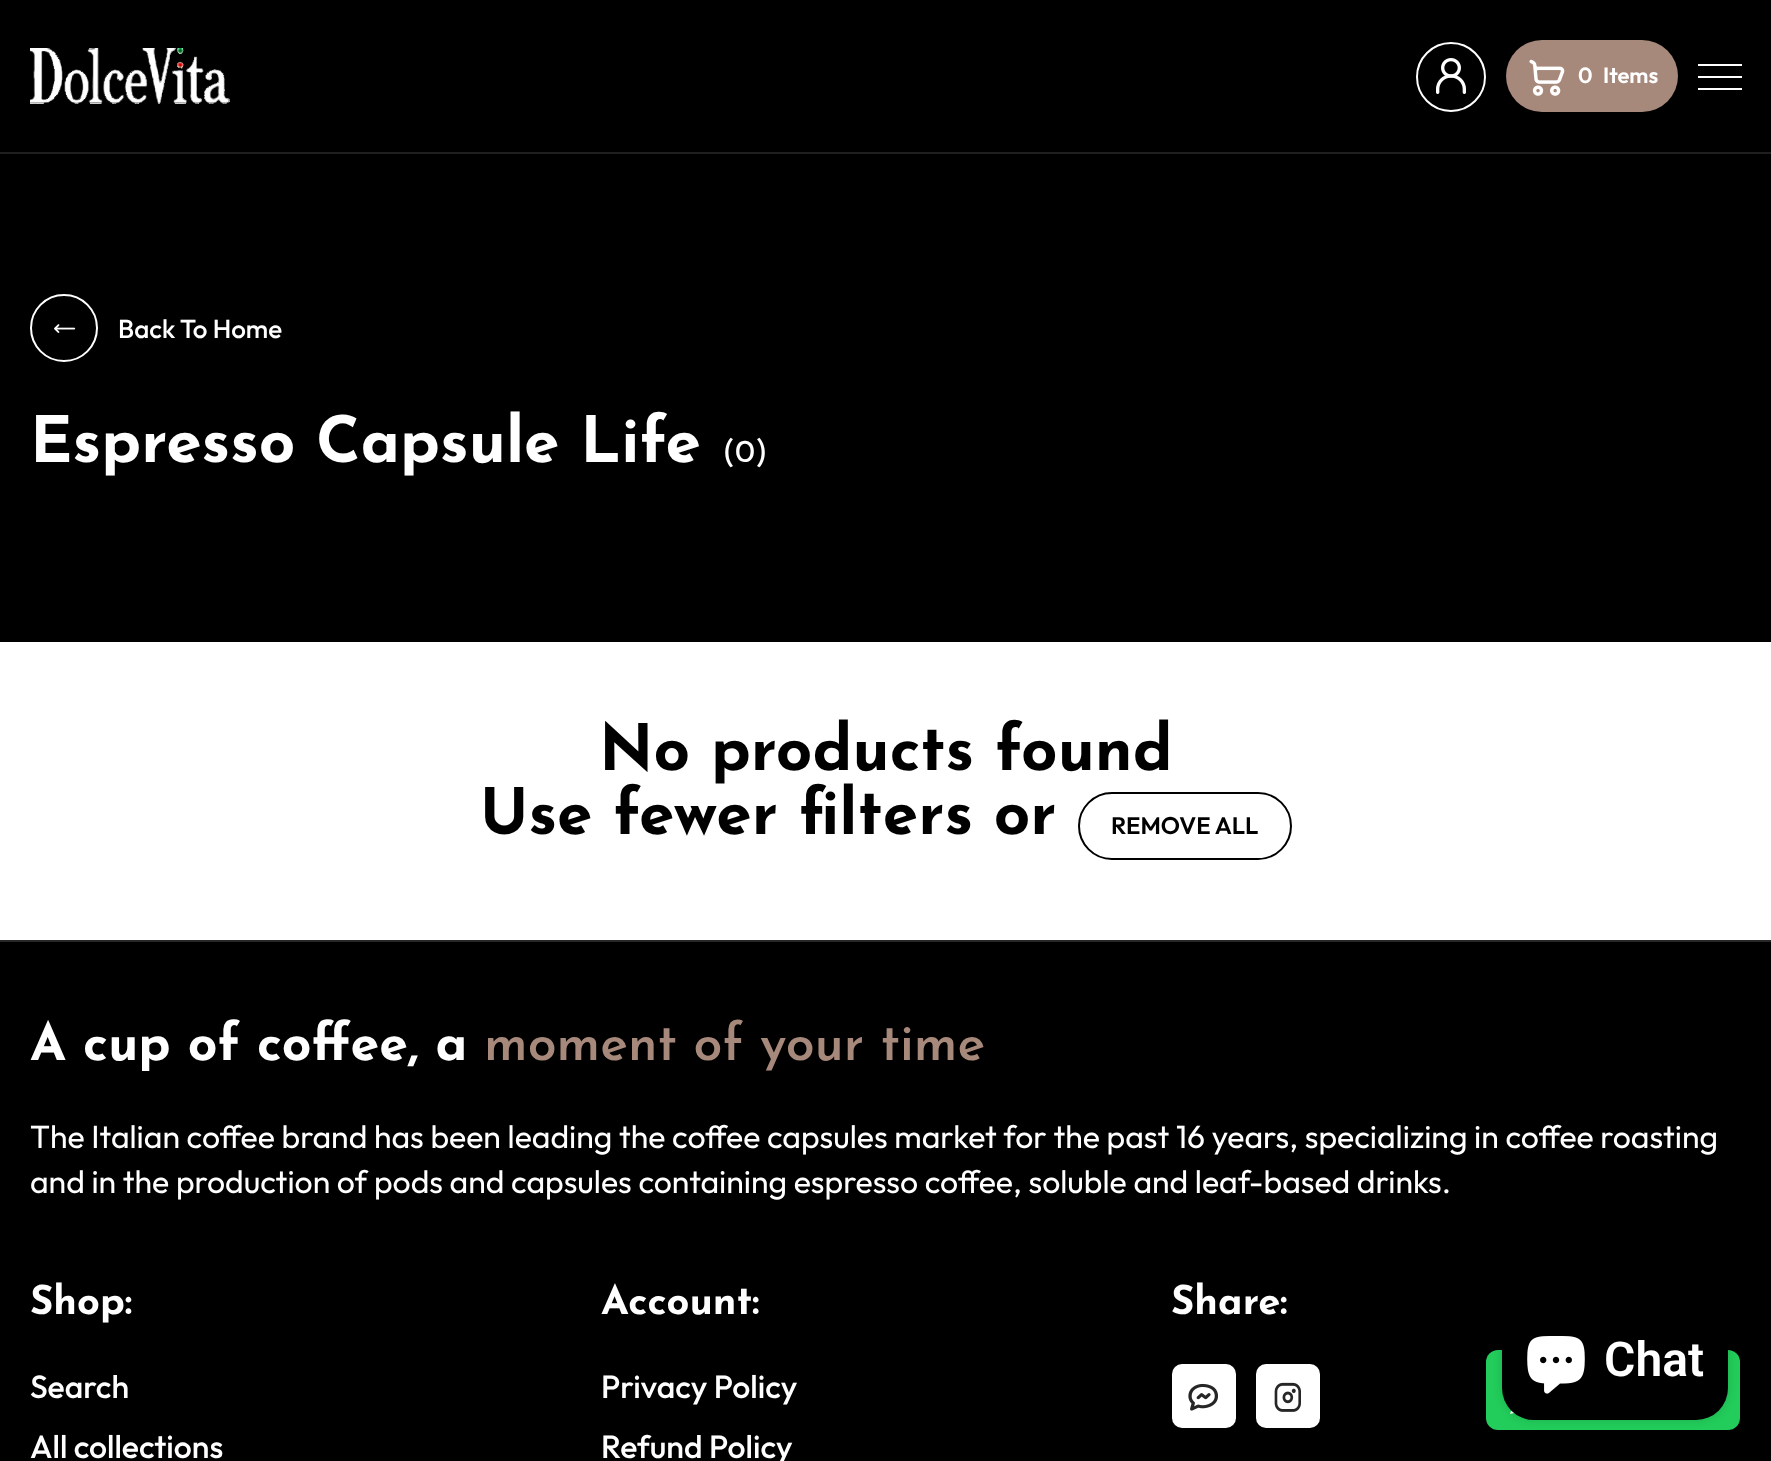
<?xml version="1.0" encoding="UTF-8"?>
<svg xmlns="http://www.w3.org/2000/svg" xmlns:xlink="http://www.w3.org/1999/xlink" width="1771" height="1461">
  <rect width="100%" height="100%" fill="#ffffff" />
  <rect width="1771" height="152" fill="#000000" />
  <rect y="152" width="1771" height="2" fill="#201f1f" />
  <image x="30" y="48" width="200" height="56" xlink:href="image1.png" />
  <circle cx="1451" cy="77" r="34" fill="none" stroke="#ffffff" stroke-width="2" />
  <image x="1436" y="58" width="30" height="36" xlink:href="image2.png" />
  <rect x="1506" y="40" width="172" height="72" rx="36" fill="#a7897b" />
  <image x="1529" y="59" width="36" height="37" xlink:href="image3.png" />
  <rect x="1698" y="64" width="44" height="2" fill="#ffffff" />
  <rect x="1698" y="76" width="44" height="2" fill="#ffffff" />
  <rect x="1698" y="88" width="44" height="2" fill="#ffffff" />
  <rect y="154" width="1771" height="488" fill="#000000" />
  <circle cx="64" cy="328" r="33" fill="none" stroke="#ffffff" stroke-width="2" />
  <image x="54" y="324" width="22" height="9" xlink:href="image4.png" />
  <rect x="1079" y="793" width="212" height="66" rx="33" fill="none" stroke="#000000" stroke-width="2" />
  <rect y="942" width="1771" height="519" fill="#000000" />
  <rect y="940" width="1771" height="2" fill="#272727" />
  <rect x="1172" y="1364" width="64" height="64" rx="10" fill="#ffffff" />
  <image x="1188" y="1383" width="30" height="28" xlink:href="image5.png" />
  <rect x="1256" y="1364" width="64" height="64" rx="10" fill="#ffffff" />
  <image x="1274" y="1382" width="27" height="30" xlink:href="image6.png" />
  <rect x="1486" y="1350" width="254" height="80" rx="12" fill="#22cd5b" />
  <image x="1510" y="1410" width="4" height="4" xlink:href="image8.png" />
  <rect x="1502" y="1300" width="226" height="120" rx="32" fill="#000000" fill-opacity="0.15" filter="blur(5px)" />
  <rect x="1502" y="1300" width="226" height="120" rx="32" fill="#000000" />
  <image x="1527" y="1336" width="58" height="58" xlink:href="image7.png" />
  <text x="1578" y="83" style="font-family: Outfit; font-size: 22px; font-weight: 600; fill: #ffffff">0</text>
  <text x="1603" y="83" style="font-family: Outfit; font-size: 22px; font-weight: 600; fill: #ffffff">Items</text>
  <text x="118" y="338" style="font-family: Outfit; font-size: 26px; font-weight: 500; fill: #ffffff">Back To Home</text>
  <text x="30" y="462" style="font-family: Josefin Sans; font-size: 64px; font-weight: bold; fill: #ffffff">Espresso Capsule Life</text>
  <text x="722" y="462" style="font-family: Josefin Sans; font-size: 32px; fill: #ffffff">(0)</text>
  <text x="599" y="770" style="font-family: Josefin Sans; font-size: 64px; font-weight: bold; fill: #000000">No products found</text>
  <text x="480" y="834" style="font-family: Josefin Sans; font-size: 64px; font-weight: bold; fill: #000000">Use fewer filters or</text>
  <text x="1111" y="834" style="font-family: Outfit; font-size: 24px; font-weight: 600; fill: #000000">REMOVE ALL</text>
  <text x="30" y="1060" style="font-family: Josefin Sans; font-size: 52px; font-weight: bold; fill: #ffffff">A cup of coffee, a</text>
  <text x="484" y="1060" style="font-family: Josefin Sans; font-size: 52px; font-weight: 600; fill: #a7897b">moment of your time</text>
  <text x="30" y="1148" style="font-family: Outfit; font-size: 32px; fill: #ffffff">The Italian coffee brand has been leading the coffee capsules market for the past 16 years, specializing in coffee roasting</text>
  <text x="30" y="1193" style="font-family: Outfit; font-size: 32px; fill: #ffffff">and in the production of pods and capsules containing espresso coffee, soluble and leaf-based drinks.</text>
  <text x="30" y="1314" style="font-family: Josefin Sans; font-size: 40px; font-weight: bold; fill: #ffffff">Shop:</text>
  <text x="30" y="1398" style="font-family: Outfit; font-size: 32px; font-weight: 500; fill: #ffffff">Search</text>
  <text x="30" y="1458" style="font-family: Outfit; font-size: 32px; font-weight: 500; fill: #ffffff">All collections</text>
  <text x="601" y="1314" style="font-family: Josefin Sans; font-size: 40px; font-weight: bold; fill: #ffffff">Account:</text>
  <text x="601" y="1398" style="font-family: Outfit; font-size: 32px; font-weight: 500; fill: #ffffff">Privacy Policy</text>
  <text x="601" y="1458" style="font-family: Outfit; font-size: 32px; font-weight: 500; fill: #ffffff">Refund Policy</text>
  <text x="1171" y="1314" style="font-family: Josefin Sans; font-size: 40px; font-weight: bold; fill: #ffffff">Share:</text>
  <text x="1604" y="1376" style="font-family: Roboto; font-size: 48px; font-weight: 600; fill: #ffffff">Chat</text>
</svg>
